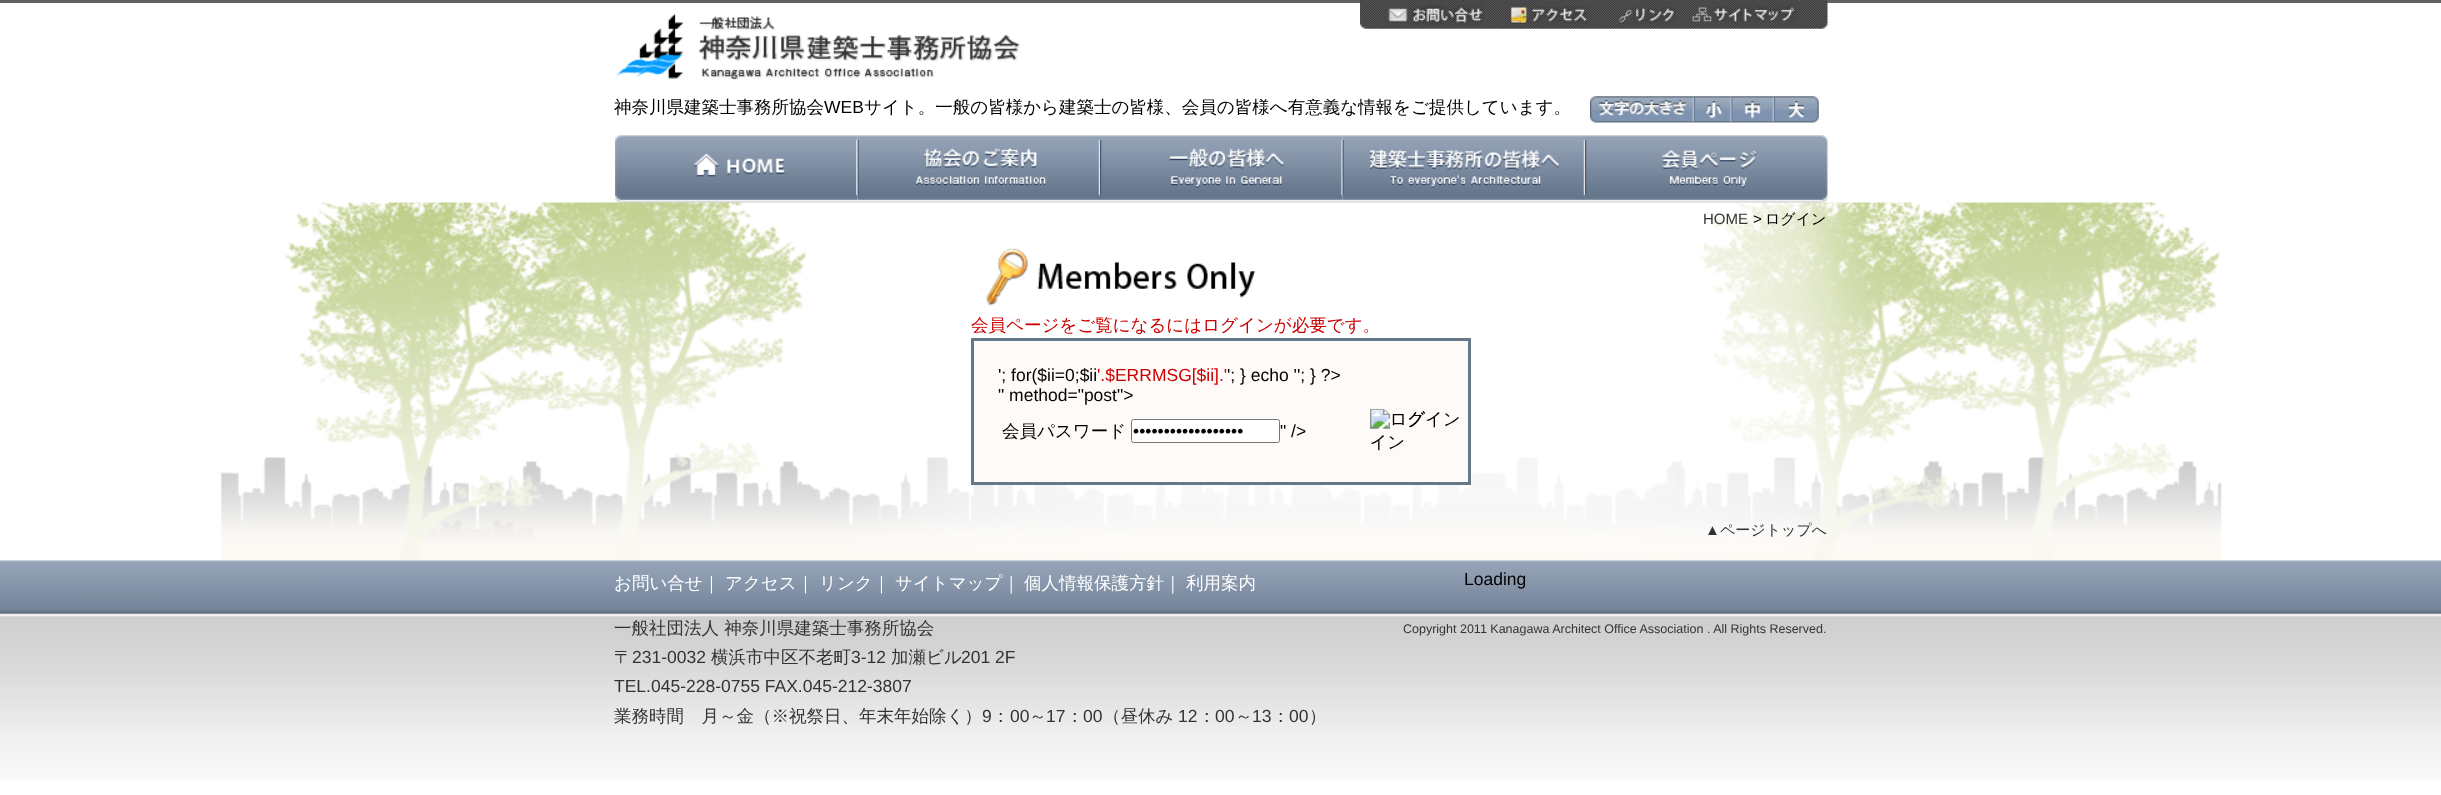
<?xml version="1.0" encoding="UTF-8"?>
<svg xmlns="http://www.w3.org/2000/svg" xmlns:xlink="http://www.w3.org/1999/xlink" width="2441" height="795">
  <rect width="100%" height="100%" fill="#ffffff" />
  <rect width="2441" height="3" fill="#616161" />
  <image x="616" y="13" width="404" height="68" xlink:href="image1.png" />
  <image x="1360" y="0" width="468" height="29" xlink:href="image2.png" />
  <image x="1388" y="5" width="96" height="20" xlink:href="image3.png" />
  <image x="1510" y="6" width="77" height="18" xlink:href="image4.png" />
  <image x="1618" y="7" width="58" height="17" xlink:href="image5.png" />
  <image x="1692" y="6" width="104" height="16" xlink:href="image6.png" />
  <image x="1590" y="96" width="104" height="27" xlink:href="image7.png" />
  <image x="1693" y="96" width="39" height="27" xlink:href="image8.png" />
  <image x="1731" y="96" width="43" height="27" xlink:href="image9.png" />
  <image x="1773" y="96" width="46" height="27" xlink:href="image10.png" />
  <image x="221" y="202" width="2001" height="358" xlink:href="image16.png" />
  <image x="615" y="135" width="243" height="68" xlink:href="image11.png" />
  <image x="857" y="135" width="243" height="68" xlink:href="image12.png" />
  <image x="1100" y="135" width="243" height="68" xlink:href="image13.png" />
  <image x="1342" y="135" width="243" height="68" xlink:href="image14.png" />
  <image x="1585" y="135" width="243" height="68" xlink:href="image15.png" />
  <image x="986" y="248" width="270" height="58" xlink:href="image17.png" />
  <rect x="972.5" y="339.5" width="497" height="144" fill="#fdfaf7" stroke="#667788" stroke-width="3" />
  <image x="1370" y="408" width="55" height="43" xlink:href="image18.png" />
  <rect x="1131.5" y="419.5" width="148" height="23" rx="2" fill="#ffffff" stroke="#767676" />
  <image x="0" y="560" width="2441" height="220" xlink:href="image19.png" />
  <text x="614" y="113" style="font-family: WenQuanYi Zen Hei; font-size: 17.5px; font-weight: 500; fill: #000000">神奈川県建築士事務所協会</text>
  <text x="824" y="113" style="font-family: Liberation Sans; font-size: 17.5px; fill: #000000">WEB</text>
  <text x="864" y="113" style="font-family: WenQuanYi Zen Hei; font-size: 17.5px; font-weight: 500; fill: #000000">サイト。一般の皆様から建築士の皆様、会員の皆様へ有意義な情報をご提供しています。</text>
  <text x="1703" y="224" style="font-family: Liberation Sans; font-size: 15px; fill: #333333">HOME</text>
  <text x="1753" y="224" style="font-family: Liberation Sans; font-size: 15px; fill: #000000">&gt;</text>
  <text x="1765" y="224" style="font-family: WenQuanYi Zen Hei; font-size: 15px; font-weight: 500; fill: #000000">ログイン</text>
  <text x="971" y="331" style="font-family: WenQuanYi Zen Hei; font-size: 17.5px; font-weight: 500; fill: #cc0000">会員ページをご覧になるにはログインが必要です。</text>
  <text x="1097" y="381" style="font-family: Liberation Sans; font-size: 17.5px; fill: #cc0000">'.$ERRMSG[$ii].'</text>
  <text x="1227" y="381" style="font-family: Liberation Sans; font-size: 17.5px; fill: #000000">'; } echo ''; } ?&gt;</text>
  <text x="998" y="401" style="font-family: Liberation Sans; font-size: 17.5px; fill: #000000">" method="post"&gt;</text>
  <text x="1407" y="425" style="font-family: WenQuanYi Zen Hei; font-size: 17.5px; font-weight: 500; fill: #000000">グイン</text>
  <text x="1002" y="437" style="font-family: WenQuanYi Zen Hei; font-size: 17.5px; font-weight: 500; fill: #000000">会員パスワード</text>
  <text x="1133" y="437" style="font-family: Liberation Sans; font-size: 17.5px; fill: #000000">••••••••••••••••••</text>
  <text x="1280" y="437" style="font-family: Liberation Sans; font-size: 17.5px; fill: #000000">" /&gt;</text>
  <text x="998" y="381" style="font-family: Liberation Sans; font-size: 17.5px; fill: #000000">'; for($ii=0;$ii</text>
  <text x="1705" y="535" style="font-family: Liberation Sans; font-size: 15px; fill: #333333">▲</text>
  <text x="1720" y="535" style="font-family: WenQuanYi Zen Hei; font-size: 15px; font-weight: 500; fill: #333333">ページトップへ</text>
  <text x="614" y="589" style="font-family: WenQuanYi Zen Hei; font-size: 17.5px; font-weight: 500; fill: #ffffff">お問い合せ｜</text>
  <text x="725" y="589" style="font-family: WenQuanYi Zen Hei; font-size: 17.5px; font-weight: 500; fill: #ffffff">アクセス｜</text>
  <text x="819" y="589" style="font-family: WenQuanYi Zen Hei; font-size: 17.5px; font-weight: 500; fill: #ffffff">リンク｜</text>
  <text x="895" y="589" style="font-family: WenQuanYi Zen Hei; font-size: 17.5px; font-weight: 500; fill: #ffffff">サイトマップ｜</text>
  <text x="1024" y="589" style="font-family: WenQuanYi Zen Hei; font-size: 17.5px; font-weight: 500; fill: #ffffff">個人情報保護方針｜</text>
  <text x="1186" y="589" style="font-family: WenQuanYi Zen Hei; font-size: 17.5px; font-weight: 500; fill: #ffffff">利用案内</text>
  <text x="1464" y="585" style="font-family: Liberation Sans; font-size: 17.5px; fill: #000000">Loading</text>
  <text x="614" y="634" style="font-family: WenQuanYi Zen Hei; font-size: 17.5px; font-weight: 500; fill: #333333">一般社団法人 神奈川県建築士事務所協会</text>
  <text x="614" y="663" style="font-family: WenQuanYi Zen Hei; font-size: 17.5px; font-weight: 500; fill: #333333">〒</text>
  <text x="632" y="663" style="font-family: Liberation Sans; font-size: 17.5px; fill: #333333">231-0032</text>
  <text x="711" y="663" style="font-family: WenQuanYi Zen Hei; font-size: 17.5px; font-weight: 500; fill: #333333">横浜市中区不老町</text>
  <text x="851" y="663" style="font-family: Liberation Sans; font-size: 17.5px; fill: #333333">3-12</text>
  <text x="891" y="663" style="font-family: WenQuanYi Zen Hei; font-size: 17.5px; font-weight: 500; fill: #333333">加瀬ビル</text>
  <text x="961" y="663" style="font-family: Liberation Sans; font-size: 17.5px; fill: #333333">201 2F</text>
  <text x="614" y="692" style="font-family: Liberation Sans; font-size: 17.5px; fill: #333333">TEL.045-228-0755 FAX.045-212-3807</text>
  <text x="614" y="722" style="font-family: WenQuanYi Zen Hei; font-size: 17.5px; font-weight: 500; fill: #333333">業務時間　月～金（※祝祭日、年末年始除く）</text>
  <text x="982" y="722" style="font-family: Liberation Sans; font-size: 17.5px; fill: #333333">9</text>
  <text x="992" y="722" style="font-family: WenQuanYi Zen Hei; font-size: 17.5px; font-weight: 500; fill: #333333">：</text>
  <text x="1010" y="722" style="font-family: Liberation Sans; font-size: 17.5px; fill: #333333">00</text>
  <text x="1029" y="722" style="font-family: WenQuanYi Zen Hei; font-size: 17.5px; font-weight: 500; fill: #333333">～</text>
  <text x="1046" y="722" style="font-family: Liberation Sans; font-size: 17.5px; fill: #333333">17</text>
  <text x="1066" y="722" style="font-family: WenQuanYi Zen Hei; font-size: 17.5px; font-weight: 500; fill: #333333">：</text>
  <text x="1083" y="722" style="font-family: Liberation Sans; font-size: 17.5px; fill: #333333">00</text>
  <text x="1103" y="722" style="font-family: WenQuanYi Zen Hei; font-size: 17.5px; font-weight: 500; fill: #333333">（昼休み</text>
  <text x="1178" y="722" style="font-family: Liberation Sans; font-size: 17.5px; fill: #333333">12</text>
  <text x="1198" y="722" style="font-family: WenQuanYi Zen Hei; font-size: 17.5px; font-weight: 500; fill: #333333">：</text>
  <text x="1215" y="722" style="font-family: Liberation Sans; font-size: 17.5px; fill: #333333">00</text>
  <text x="1235" y="722" style="font-family: WenQuanYi Zen Hei; font-size: 17.5px; font-weight: 500; fill: #333333">～</text>
  <text x="1252" y="722" style="font-family: Liberation Sans; font-size: 17.5px; fill: #333333">13</text>
  <text x="1272" y="722" style="font-family: WenQuanYi Zen Hei; font-size: 17.5px; font-weight: 500; fill: #333333">：</text>
  <text x="1289" y="722" style="font-family: Liberation Sans; font-size: 17.5px; fill: #333333">00</text>
  <text x="1309" y="722" style="font-family: WenQuanYi Zen Hei; font-size: 17.5px; font-weight: 500; fill: #333333">）</text>
  <text x="1403" y="633" style="font-family: Liberation Sans; font-size: 12.5px; fill: #333333">Copyright 2011 Kanagawa Architect Office Association . All Rights Reserved.</text>
</svg>
